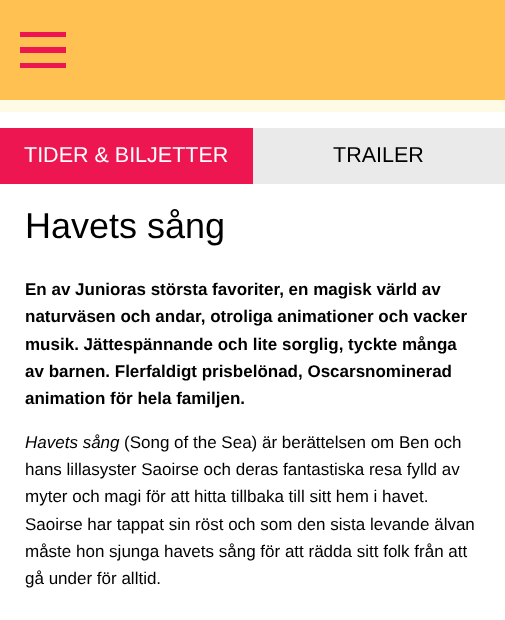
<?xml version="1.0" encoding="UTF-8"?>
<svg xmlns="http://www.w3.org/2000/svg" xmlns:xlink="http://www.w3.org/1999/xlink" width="505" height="620">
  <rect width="100%" height="100%" fill="#fec152" />
  <rect x="20" y="32" width="46" height="5" fill="#ed1651" />
  <rect x="20" y="47" width="46" height="6" fill="#ed1651" />
  <rect x="20" y="63" width="46" height="5" fill="#ed1651" />
  <rect y="100" width="505" height="12" fill="#fdfae5" />
  <rect y="112" width="505" height="508" fill="#ffffff" />
  <rect y="128" width="253" height="56" fill="#ed1651" />
  <rect x="253" y="128" width="252" height="56" fill="#eaeaea" />
  <text x="24" y="162" style="font-family: Liberation Sans; font-size: 21.5px; fill: #ffffff">TIDER &amp; BILJETTER</text>
  <text x="333" y="162" style="font-family: Liberation Sans; font-size: 21.5px; fill: #000000">TRAILER</text>
  <text x="25" y="238" style="font-family: Liberation Sans; font-size: 36px; fill: #000000">Havets sång</text>
  <text x="25" y="295" style="font-family: Liberation Sans; font-size: 17px; font-weight: bold; fill: #000000">En av Junioras största favoriter, en magisk värld av</text>
  <text x="25" y="322" style="font-family: Liberation Sans; font-size: 17px; font-weight: bold; fill: #000000">naturväsen och andar, otroliga animationer och vacker</text>
  <text x="25" y="350" style="font-family: Liberation Sans; font-size: 17px; font-weight: bold; fill: #000000">musik. Jättespännande och lite sorglig, tyckte många</text>
  <text x="25" y="377" style="font-family: Liberation Sans; font-size: 17px; font-weight: bold; fill: #000000">av barnen. Flerfaldigt prisbelönad, Oscarsnominerad</text>
  <text x="25" y="404" style="font-family: Liberation Sans; font-size: 17px; font-weight: bold; fill: #000000">animation för hela familjen.</text>
  <text x="25" y="448" style="font-family: Liberation Sans; font-size: 17px; font-style: italic; fill: #000000">Havets sång</text>
  <text x="124" y="448" style="font-family: Liberation Sans; font-size: 17px; fill: #000000">(Song of the Sea) är berättelsen om Ben och</text>
  <text x="25" y="475" style="font-family: Liberation Sans; font-size: 17px; fill: #000000">hans lillasyster Saoirse och deras fantastiska resa fylld av</text>
  <text x="25" y="502" style="font-family: Liberation Sans; font-size: 17px; fill: #000000">myter och magi för att hitta tillbaka till sitt hem i havet.</text>
  <text x="25" y="530" style="font-family: Liberation Sans; font-size: 17px; fill: #000000">Saoirse har tappat sin röst och som den sista levande älvan</text>
  <text x="25" y="557" style="font-family: Liberation Sans; font-size: 17px; fill: #000000">måste hon sjunga havets sång för att rädda sitt folk från att</text>
  <text x="25" y="584" style="font-family: Liberation Sans; font-size: 17px; fill: #000000">gå under för alltid.</text>
</svg>
